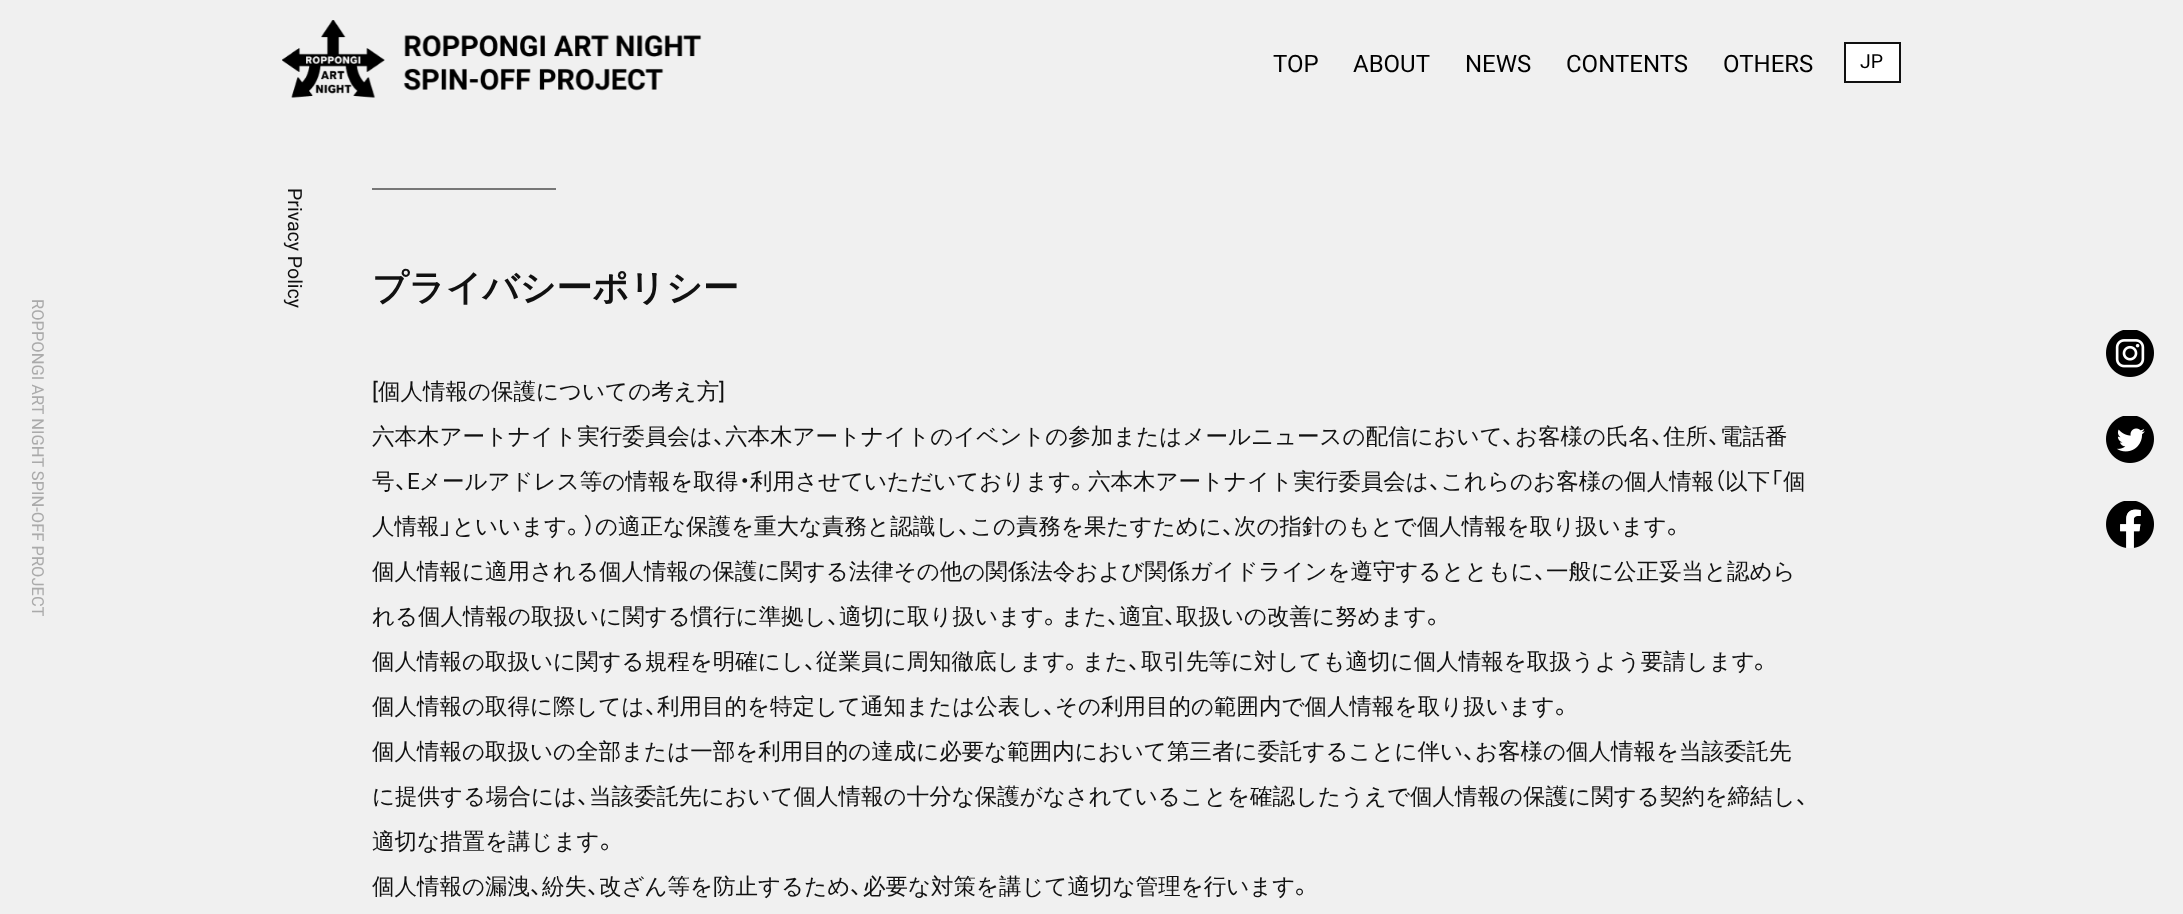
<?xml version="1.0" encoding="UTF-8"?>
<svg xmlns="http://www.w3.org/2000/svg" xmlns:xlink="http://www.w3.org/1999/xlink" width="2183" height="914">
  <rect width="100%" height="100%" fill="#f0f0f0" />
  <image x="282" y="20" width="420" height="78" xlink:href="image1.png" />
  <rect x="1845" y="43" width="55" height="39" fill="#ffffff" stroke="#111111" stroke-width="2" />
  <rect x="372" y="188" width="184" height="2" fill="#777777" />
  <image x="2106" y="330" width="48" height="47" xlink:href="image2.png" />
  <image x="2106" y="416" width="48" height="47" xlink:href="image3.png" />
  <image x="2106" y="501" width="48" height="47" xlink:href="image4.png" />
  <text x="1273" y="72" style="font-family: Roboto; font-size: 24px; fill: #000000">TOP</text>
  <text x="1353" y="72" style="font-family: Roboto; font-size: 24px; fill: #000000">ABOUT</text>
  <text x="1465" y="72" style="font-family: Roboto; font-size: 24px; fill: #000000">NEWS</text>
  <text x="1566" y="72" style="font-family: Roboto; font-size: 24px; fill: #000000">CONTENTS</text>
  <text x="1723" y="72" style="font-family: Roboto; font-size: 24px; fill: #000000">OTHERS</text>
  <text x="1860" y="68" style="font-family: Roboto; font-size: 19.5px; fill: #000000">JP</text>
  <text x="32" y="299" transform="rotate(90 32 299)" style="font-family: Roboto; font-size: 16.5px; fill: #aaaaaa">ROPPONGI ART NIGHT SPIN-OFF PROJECT</text>
  <text x="288" y="188" transform="rotate(90 288 188)" style="font-family: Roboto; font-size: 19.5px; fill: #111111">Privacy Policy</text>
  <text x="372" y="300" style="font-family: WenQuanYi Zen Hei; font-size: 36px; font-weight: bold; fill: #111111">プライバシーポリシー</text>
  <text x="372" y="399" style="font-family: Roboto; font-size: 22.5px; fill: #111111">[</text>
  <text x="378" y="399" style="font-family: WenQuanYi Zen Hei; font-size: 22.5px; font-weight: 500; fill: #111111">個人情報の保護についての考え方</text>
  <text x="719" y="399" style="font-family: Roboto; font-size: 22.5px; fill: #111111">]</text>
  <text x="372" y="444" style="font-family: WenQuanYi Zen Hei; font-size: 22.5px; font-weight: 500; fill: #111111">六本木アートナイト実行委員会は</text>
  <text x="713" y="444" style="font-family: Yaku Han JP; font-size: 22.5px; fill: #111111">、</text>
  <text x="725" y="444" style="font-family: WenQuanYi Zen Hei; font-size: 22.5px; font-weight: 500; fill: #111111">六本木アートナイトのイベントの参加またはメールニュースの配信において</text>
  <text x="1502" y="444" style="font-family: Yaku Han JP; font-size: 22.5px; fill: #111111">、</text>
  <text x="1515" y="444" style="font-family: WenQuanYi Zen Hei; font-size: 22.5px; font-weight: 500; fill: #111111">お客様の氏名</text>
  <text x="1651" y="444" style="font-family: Yaku Han JP; font-size: 22.5px; fill: #111111">、</text>
  <text x="1663" y="444" style="font-family: WenQuanYi Zen Hei; font-size: 22.5px; font-weight: 500; fill: #111111">住所</text>
  <text x="1708" y="444" style="font-family: Yaku Han JP; font-size: 22.5px; fill: #111111">、</text>
  <text x="1720" y="444" style="font-family: WenQuanYi Zen Hei; font-size: 22.5px; font-weight: 500; fill: #111111">電話番</text>
  <text x="372" y="489" style="font-family: WenQuanYi Zen Hei; font-size: 22.5px; font-weight: 500; fill: #111111">号</text>
  <text x="407" y="489" style="font-family: Roboto; font-size: 22.5px; fill: #111111">E</text>
  <text x="419" y="489" style="font-family: WenQuanYi Zen Hei; font-size: 22.5px; font-weight: 500; fill: #111111">メールアドレス等の情報を取得</text>
  <text x="739" y="489" style="font-family: Yaku Han JP; font-size: 22.5px; fill: #111111">・</text>
  <text x="750" y="489" style="font-family: WenQuanYi Zen Hei; font-size: 22.5px; font-weight: 500; fill: #111111">利用させていただいております</text>
  <text x="1088" y="489" style="font-family: WenQuanYi Zen Hei; font-size: 22.5px; font-weight: 500; fill: #111111">六本木アートナイト実行委員会は</text>
  <text x="1441" y="489" style="font-family: WenQuanYi Zen Hei; font-size: 22.5px; font-weight: 500; fill: #111111">これらのお客様の個人情報</text>
  <text x="1714" y="489" style="font-family: Yaku Han JP; font-size: 22.5px; fill: #111111">（</text>
  <text x="1725" y="489" style="font-family: WenQuanYi Zen Hei; font-size: 22.5px; font-weight: 500; fill: #111111">以下</text>
  <text x="1770" y="489" style="font-family: Yaku Han JP; font-size: 22.5px; fill: #111111">「</text>
  <text x="1783" y="489" style="font-family: WenQuanYi Zen Hei; font-size: 22.5px; font-weight: 500; fill: #111111">個</text>
  <text x="395" y="489" style="font-family: Yaku Han JP; font-size: 22.5px; fill: #111111">、</text>
  <text x="1071" y="489" style="font-family: Yaku Han JP; font-size: 22.5px; fill: #111111">。</text>
  <text x="1429" y="489" style="font-family: Yaku Han JP; font-size: 22.5px; fill: #111111">、</text>
  <text x="372" y="534" style="font-family: WenQuanYi Zen Hei; font-size: 22.5px; font-weight: 500; fill: #111111">人情報</text>
  <text x="440" y="534" style="font-family: Yaku Han JP; font-size: 22.5px; fill: #111111">」</text>
  <text x="452" y="534" style="font-family: WenQuanYi Zen Hei; font-size: 22.5px; font-weight: 500; fill: #111111">といいます</text>
  <text x="567" y="534" style="font-family: Yaku Han JP; font-size: 22.5px; fill: #111111">。）</text>
  <text x="595" y="534" style="font-family: WenQuanYi Zen Hei; font-size: 22.5px; font-weight: 500; fill: #111111">の適正な保護を重大な責務と認識し</text>
  <text x="958" y="534" style="font-family: Yaku Han JP; font-size: 22.5px; fill: #111111">、</text>
  <text x="970" y="534" style="font-family: WenQuanYi Zen Hei; font-size: 22.5px; font-weight: 500; fill: #111111">この責務を果たすために</text>
  <text x="1222" y="534" style="font-family: Yaku Han JP; font-size: 22.5px; fill: #111111">、</text>
  <text x="1234" y="534" style="font-family: WenQuanYi Zen Hei; font-size: 22.5px; font-weight: 500; fill: #111111">次の指針のもとで個人情報を取り扱います</text>
  <text x="1667" y="534" style="font-family: Yaku Han JP; font-size: 22.5px; fill: #111111">。</text>
  <text x="372" y="579" style="font-family: WenQuanYi Zen Hei; font-size: 22.5px; font-weight: 500; fill: #111111">個人情報に適用される個人情報の保護に関する法律その他の関係法令および関係ガイドラインを遵守するとともに</text>
  <text x="1534" y="579" style="font-family: Yaku Han JP; font-size: 22.5px; fill: #111111">、</text>
  <text x="1546" y="579" style="font-family: WenQuanYi Zen Hei; font-size: 22.5px; font-weight: 500; fill: #111111">一般に公正妥当と認めら</text>
  <text x="372" y="624" style="font-family: WenQuanYi Zen Hei; font-size: 22.5px; font-weight: 500; fill: #111111">れる個人情報の取扱いに関する慣行に準拠し</text>
  <text x="827" y="624" style="font-family: Yaku Han JP; font-size: 22.5px; fill: #111111">、</text>
  <text x="839" y="624" style="font-family: WenQuanYi Zen Hei; font-size: 22.5px; font-weight: 500; fill: #111111">適切に取り扱います</text>
  <text x="1044" y="624" style="font-family: Yaku Han JP; font-size: 22.5px; fill: #111111">。</text>
  <text x="1061" y="624" style="font-family: WenQuanYi Zen Hei; font-size: 22.5px; font-weight: 500; fill: #111111">また</text>
  <text x="1107" y="624" style="font-family: Yaku Han JP; font-size: 22.5px; fill: #111111">、</text>
  <text x="1119" y="624" style="font-family: WenQuanYi Zen Hei; font-size: 22.5px; font-weight: 500; fill: #111111">適宜</text>
  <text x="1164" y="624" style="font-family: Yaku Han JP; font-size: 22.5px; fill: #111111">、</text>
  <text x="1176" y="624" style="font-family: WenQuanYi Zen Hei; font-size: 22.5px; font-weight: 500; fill: #111111">取扱いの改善に努めます</text>
  <text x="1427" y="624" style="font-family: Yaku Han JP; font-size: 22.5px; fill: #111111">。</text>
  <text x="372" y="669" style="font-family: WenQuanYi Zen Hei; font-size: 22.5px; font-weight: 500; fill: #111111">個人情報の取扱いに関する規程を明確にし</text>
  <text x="804" y="669" style="font-family: Yaku Han JP; font-size: 22.5px; fill: #111111">、</text>
  <text x="816" y="669" style="font-family: WenQuanYi Zen Hei; font-size: 22.5px; font-weight: 500; fill: #111111">従業員に周知徹底します</text>
  <text x="1065" y="669" style="font-family: Yaku Han JP; font-size: 22.5px; fill: #111111">。</text>
  <text x="1082" y="669" style="font-family: WenQuanYi Zen Hei; font-size: 22.5px; font-weight: 500; fill: #111111">また</text>
  <text x="1128" y="669" style="font-family: Yaku Han JP; font-size: 22.5px; fill: #111111">、</text>
  <text x="1141" y="669" style="font-family: WenQuanYi Zen Hei; font-size: 22.5px; font-weight: 500; fill: #111111">取引先等に対しても適切に個人情報を取扱うよう要請します</text>
  <text x="1754" y="669" style="font-family: Yaku Han JP; font-size: 22.5px; fill: #111111">。</text>
  <text x="372" y="714" style="font-family: WenQuanYi Zen Hei; font-size: 22.5px; font-weight: 500; fill: #111111">個人情報の取得に際しては</text>
  <text x="645" y="714" style="font-family: Yaku Han JP; font-size: 22.5px; fill: #111111">、</text>
  <text x="657" y="714" style="font-family: WenQuanYi Zen Hei; font-size: 22.5px; font-weight: 500; fill: #111111">利用目的を特定して通知または公表し</text>
  <text x="1043" y="714" style="font-family: Yaku Han JP; font-size: 22.5px; fill: #111111">、</text>
  <text x="1055" y="714" style="font-family: WenQuanYi Zen Hei; font-size: 22.5px; font-weight: 500; fill: #111111">その利用目的の範囲内で個人情報を取り扱います</text>
  <text x="1555" y="714" style="font-family: Yaku Han JP; font-size: 22.5px; fill: #111111">。</text>
  <text x="372" y="759" style="font-family: WenQuanYi Zen Hei; font-size: 22.5px; font-weight: 500; fill: #111111">個人情報の取扱いの全部または一部を利用目的の達成に必要な範囲内において第三者に委託することに伴い</text>
  <text x="1463" y="759" style="font-family: Yaku Han JP; font-size: 22.5px; fill: #111111">、</text>
  <text x="1475" y="759" style="font-family: WenQuanYi Zen Hei; font-size: 22.5px; font-weight: 500; fill: #111111">お客様の個人情報を当該委託先</text>
  <text x="372" y="804" style="font-family: WenQuanYi Zen Hei; font-size: 22.5px; font-weight: 500; fill: #111111">に提供する場合には</text>
  <text x="577" y="804" style="font-family: Yaku Han JP; font-size: 22.5px; fill: #111111">、</text>
  <text x="589" y="804" style="font-family: WenQuanYi Zen Hei; font-size: 22.5px; font-weight: 500; fill: #111111">当該委託先において個人情報の十分な保護がなされていることを確認したうえで個人情報の保護に関する契約を締結し</text>
  <text x="1796" y="804" style="font-family: Yaku Han JP; font-size: 22.5px; fill: #111111">、</text>
  <text x="372" y="849" style="font-family: WenQuanYi Zen Hei; font-size: 22.5px; font-weight: 500; fill: #111111">適切な措置を講じます</text>
  <text x="600" y="849" style="font-family: Yaku Han JP; font-size: 22.5px; fill: #111111">。</text>
  <text x="372" y="894" style="font-family: WenQuanYi Zen Hei; font-size: 22.5px; font-weight: 500; fill: #111111">個人情報の漏洩</text>
  <text x="530" y="894" style="font-family: Yaku Han JP; font-size: 22.5px; fill: #111111">、</text>
  <text x="542" y="894" style="font-family: WenQuanYi Zen Hei; font-size: 22.5px; font-weight: 500; fill: #111111">紛失</text>
  <text x="587" y="894" style="font-family: Yaku Han JP; font-size: 22.5px; fill: #111111">、</text>
  <text x="599" y="894" style="font-family: WenQuanYi Zen Hei; font-size: 22.5px; font-weight: 500; fill: #111111">改ざん等を防止するため</text>
  <text x="850" y="894" style="font-family: Yaku Han JP; font-size: 22.5px; fill: #111111">、</text>
  <text x="863" y="894" style="font-family: WenQuanYi Zen Hei; font-size: 22.5px; font-weight: 500; fill: #111111">必要な対策を講じて適切な管理を行います</text>
  <text x="1295" y="894" style="font-family: Yaku Han JP; font-size: 22.5px; fill: #111111">。</text>
</svg>
